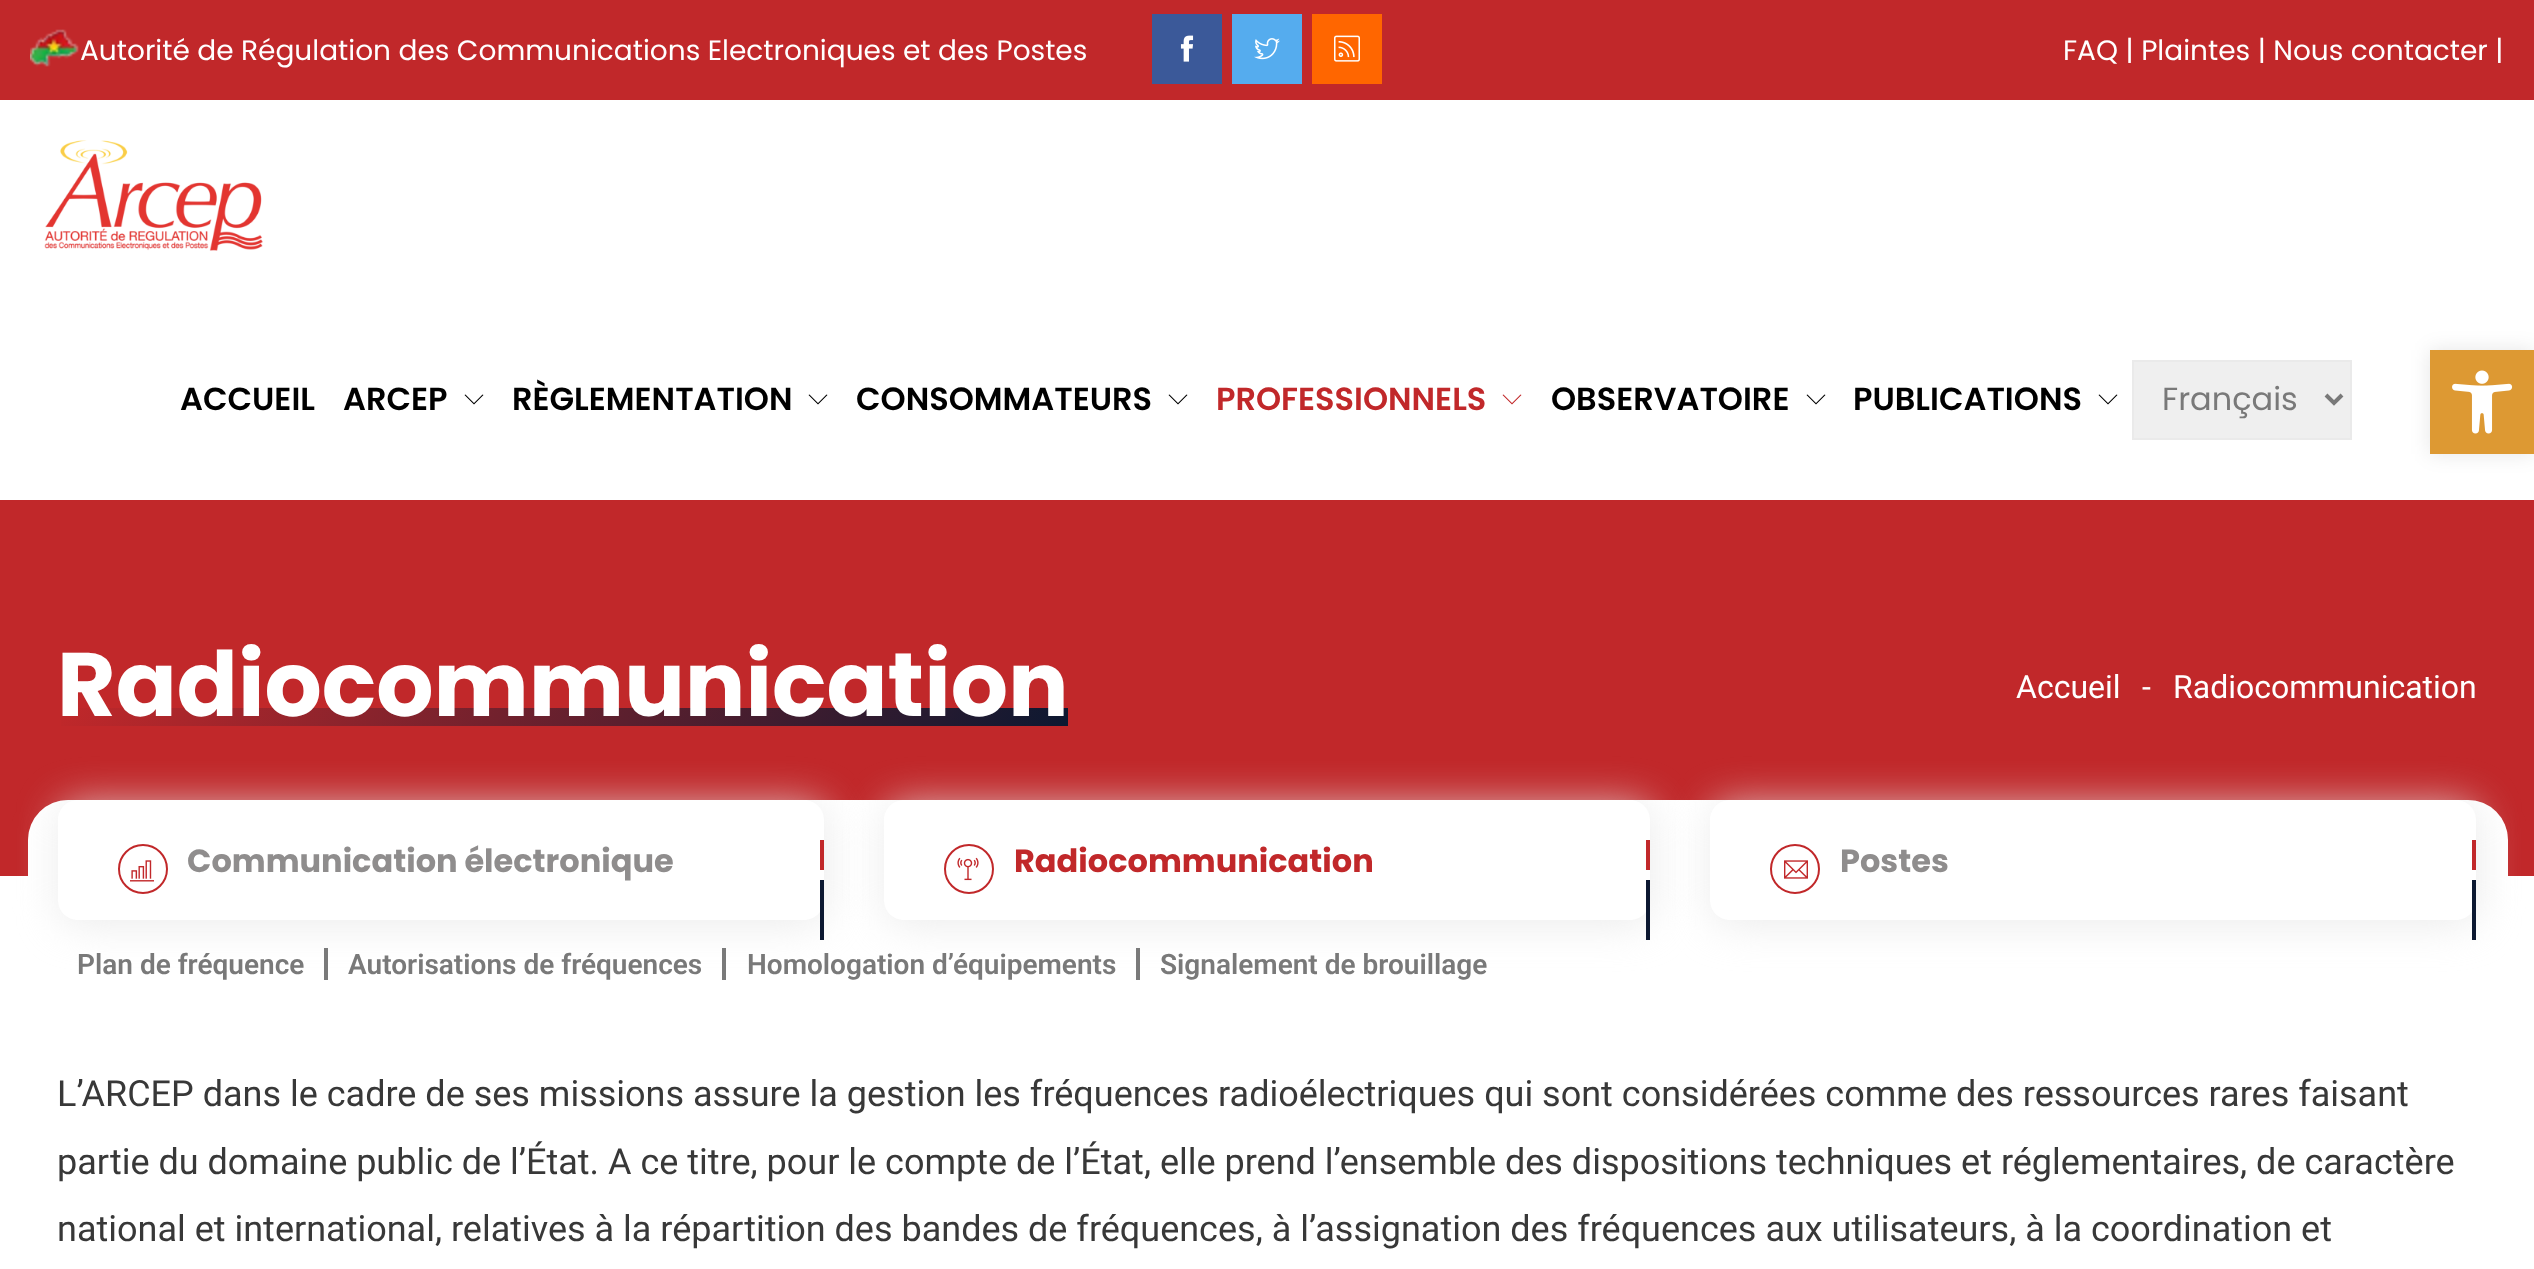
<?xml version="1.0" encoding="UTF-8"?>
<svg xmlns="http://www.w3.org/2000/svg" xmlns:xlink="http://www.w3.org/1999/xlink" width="2534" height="1269">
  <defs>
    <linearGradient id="g1" gradientUnits="userSpaceOnUse" x1="180" y1="495" x2="946" y2="937"><stop offset="0" stop-color="#c1282a" /><stop offset="1" stop-color="#0c1831" /></linearGradient>
    <clipPath id="clip1"><path d="M 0 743 h 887 v 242 h -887 z m 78 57 h 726 c 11 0 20 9 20 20 v 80 c 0 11 -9 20 -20 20 h -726 c -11 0 -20 -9 -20 -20 v -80 c 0 -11 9 -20 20 -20 z" clip-rule="evenodd" /></clipPath>
    <clipPath id="clip2"><path d="M 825 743 h 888 v 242 h -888 z m 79 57 h 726 c 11 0 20 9 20 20 v 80 c 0 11 -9 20 -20 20 h -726 c -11 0 -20 -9 -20 -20 v -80 c 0 -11 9 -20 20 -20 z" clip-rule="evenodd" /></clipPath>
    <clipPath id="clip3"><path d="M 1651 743 h 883 v 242 h -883 z m 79 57 h 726 c 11 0 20 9 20 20 v 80 c 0 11 -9 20 -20 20 h -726 c -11 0 -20 -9 -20 -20 v -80 c 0 -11 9 -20 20 -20 z" clip-rule="evenodd" /></clipPath>
  </defs>
  <rect width="100%" height="100%" fill="#ffffff" />
  <rect width="2534" height="100" fill="#c1282a" />
  <image x="30" y="29" width="49" height="38" xlink:href="image1.png" />
  <rect x="1152" y="14" width="70" height="70" fill="#3b5999" />
  <image x="1180" y="35" width="14" height="27" xlink:href="image2.png" />
  <rect x="1232" y="14" width="70" height="70" fill="#55acee" />
  <image x="1254" y="38" width="26" height="22" xlink:href="image3.png" />
  <rect x="1312" y="14" width="70" height="70" fill="#ff6600" />
  <image x="1334" y="35" width="26" height="27" xlink:href="image4.png" />
  <image x="44" y="140" width="219" height="111" xlink:href="image5.png" />
  <path d="M 483.5 395 l -9.5 9.5 l -9.5 -9.5 l 1 -0.5 l 8.5 8.5 l 8.5 -8.5 z" fill="#000000" />
  <path d="M 827.5 395 l -9.5 9.5 l -9.5 -9.5 l 1 -0.5 l 8.5 8.5 l 8.5 -8.5 z" fill="#000000" />
  <path d="M 1187.5 395 l -9.5 9.5 l -9.5 -9.5 l 1 -0.5 l 8.5 8.5 l 8.5 -8.5 z" fill="#000000" />
  <path d="M 1521.5 395 l -9.5 9.5 l -9.5 -9.5 l 1 -0.5 l 8.5 8.5 l 8.5 -8.5 z" fill="#c1282a" />
  <path d="M 1825.5 395 l -9.5 9.5 l -9.5 -9.5 l 1 -0.5 l 8.5 8.5 l 8.5 -8.5 z" fill="#000000" />
  <path d="M 2117.5 395 l -9.5 9.5 l -9.5 -9.5 l 1 -0.5 l 8.5 8.5 l 8.5 -8.5 z" fill="#000000" />
  <rect x="2133" y="361" width="218" height="78" fill="#efefef" stroke="#eaeaea" stroke-width="2" />
  <path d="M 2326 395 l 8 8 l 8 -8" fill="none" stroke="#797979" stroke-width="4" />
  <rect y="500" width="2534" height="376" fill="#c1282a" />
  <rect x="61" y="708" width="1007" height="18" fill="url(#g1)" />
  <rect x="28" y="800" width="2480" height="180" rx="40" fill="#ffffff" />
  <rect x="28" y="800" width="2480" height="180" rx="40" fill="#ffffff" fill-opacity="0.33" />
  <g clip-path="url(#clip1)">
    <rect x="60" y="804" width="766" height="120" rx="20" fill="#e6e6e6" fill-opacity="0.8" filter="blur(20px)" />
  </g>
  <circle cx="143" cy="869" r="24" fill="none" stroke="#c1282a" stroke-width="2" />
  <image x="130" y="860" width="24" height="22" xlink:href="image6.png" />
  <rect x="820" y="840" width="4" height="30" fill="#c1282a" />
  <rect x="820" y="880" width="4" height="60" fill="#0c1831" />
  <g clip-path="url(#clip2)">
    <rect x="886" y="804" width="766" height="120" rx="20" fill="#e6e6e6" fill-opacity="0.8" filter="blur(20px)" />
  </g>
  <circle cx="969" cy="869" r="24" fill="none" stroke="#c1282a" stroke-width="2" />
  <image x="957" y="857" width="22" height="24" xlink:href="image7.png" />
  <rect x="1646" y="840" width="4" height="30" fill="#c1282a" />
  <rect x="1646" y="880" width="4" height="60" fill="#0c1831" />
  <g clip-path="url(#clip3)">
    <rect x="1712" y="804" width="766" height="120" rx="20" fill="#e6e6e6" fill-opacity="0.8" filter="blur(20px)" />
  </g>
  <circle cx="1795" cy="869" r="24" fill="none" stroke="#c1282a" stroke-width="2" />
  <image x="1784" y="860" width="24" height="19" xlink:href="image8.png" />
  <rect x="2472" y="840" width="4" height="30" fill="#c1282a" />
  <rect x="2472" y="880" width="4" height="60" fill="#0c1831" />
  <rect x="324" y="948" width="4" height="32" fill="#7a7a7a" />
  <rect x="722" y="948" width="4" height="32" fill="#7a7a7a" />
  <rect x="1136" y="948" width="4" height="32" fill="#7a7a7a" />
  <rect x="2430" y="350" width="104" height="104" fill="#000000" fill-opacity="0.1" filter="blur(10px)" />
  <rect x="2430" y="350" width="104" height="104" fill="#dd9933" />
  <image x="2452" y="370" width="61" height="64" xlink:href="image9.png" />
  <text x="80" y="60" style="font-family: Poppins; font-size: 28px; fill: #ffffff">Autorité de Régulation des Communications Electroniques et des Postes</text>
  <text x="2063" y="60" style="font-family: Poppins; font-size: 28px; fill: #ffffff">FAQ | Plaintes | Nous contacter |</text>
  <text x="180" y="410" style="font-family: Poppins; font-size: 32px; font-weight: 600; fill: #000000">ACCUEIL</text>
  <text x="343" y="410" style="font-family: Poppins; font-size: 32px; font-weight: 600; fill: #000000">ARCEP</text>
  <text x="512" y="410" style="font-family: Poppins; font-size: 32px; font-weight: 600; fill: #000000">RÈGLEMENTATION</text>
  <text x="856" y="410" style="font-family: Poppins; font-size: 32px; font-weight: 600; fill: #000000">CONSOMMATEURS</text>
  <text x="1216" y="410" style="font-family: Poppins; font-size: 32px; font-weight: 600; fill: #c1282a">PROFESSIONNELS</text>
  <text x="1551" y="410" style="font-family: Poppins; font-size: 32px; font-weight: 600; fill: #000000">OBSERVATOIRE</text>
  <text x="1853" y="410" style="font-family: Poppins; font-size: 32px; font-weight: 600; fill: #000000">PUBLICATIONS</text>
  <text x="2162" y="410" style="font-family: Poppins; font-size: 32px; fill: #797979">Français</text>
  <text x="57" y="716" style="font-family: Poppins; font-size: 90px; font-weight: bold; fill: #ffffff">Radiocommunication</text>
  <text x="2016" y="698" style="font-family: Roboto; font-size: 32px; fill: #ffffff">Accueil</text>
  <text x="2142" y="698" style="font-family: Roboto; font-size: 32px; fill: #ffffff">-</text>
  <text x="2173" y="698" style="font-family: Roboto; font-size: 32px; fill: #ffffff">Radiocommunication</text>
  <text x="187" y="872" style="font-family: Poppins; font-size: 32px; font-weight: bold; fill: #8f8d8d">Communication électronique</text>
  <text x="1014" y="872" style="font-family: Poppins; font-size: 32px; font-weight: bold; fill: #c1282a">Radiocommunication</text>
  <text x="1840" y="872" style="font-family: Poppins; font-size: 32px; font-weight: bold; fill: #8f8d8d">Postes</text>
  <text x="77" y="974" style="font-family: Roboto; font-size: 28px; font-weight: 600; fill: #797979">Plan de fréquence</text>
  <text x="348" y="974" style="font-family: Roboto; font-size: 28px; font-weight: 600; fill: #797979">Autorisations de fréquences</text>
  <text x="747" y="974" style="font-family: Roboto; font-size: 28px; font-weight: 600; fill: #797979">Homologation d’équipements</text>
  <text x="1160" y="974" style="font-family: Roboto; font-size: 28px; font-weight: 600; fill: #797979">Signalement de brouillage</text>
  <text x="57" y="1106" style="font-family: Roboto; font-size: 36px; fill: #383838">L’ARCEP dans le cadre de ses missions assure la gestion les fréquences radioélectriques qui sont considérées comme des ressources rares faisant</text>
  <text x="57" y="1174" style="font-family: Roboto; font-size: 36px; fill: #383838">partie du domaine public de l’État. A ce titre, pour le compte de l’État, elle prend l’ensemble des dispositions techniques et réglementaires, de caractère</text>
  <text x="57" y="1241" style="font-family: Roboto; font-size: 36px; fill: #383838">national et international, relatives à la répartition des bandes de fréquences, à l’assignation des fréquences aux utilisateurs, à la coordination et</text>
</svg>
